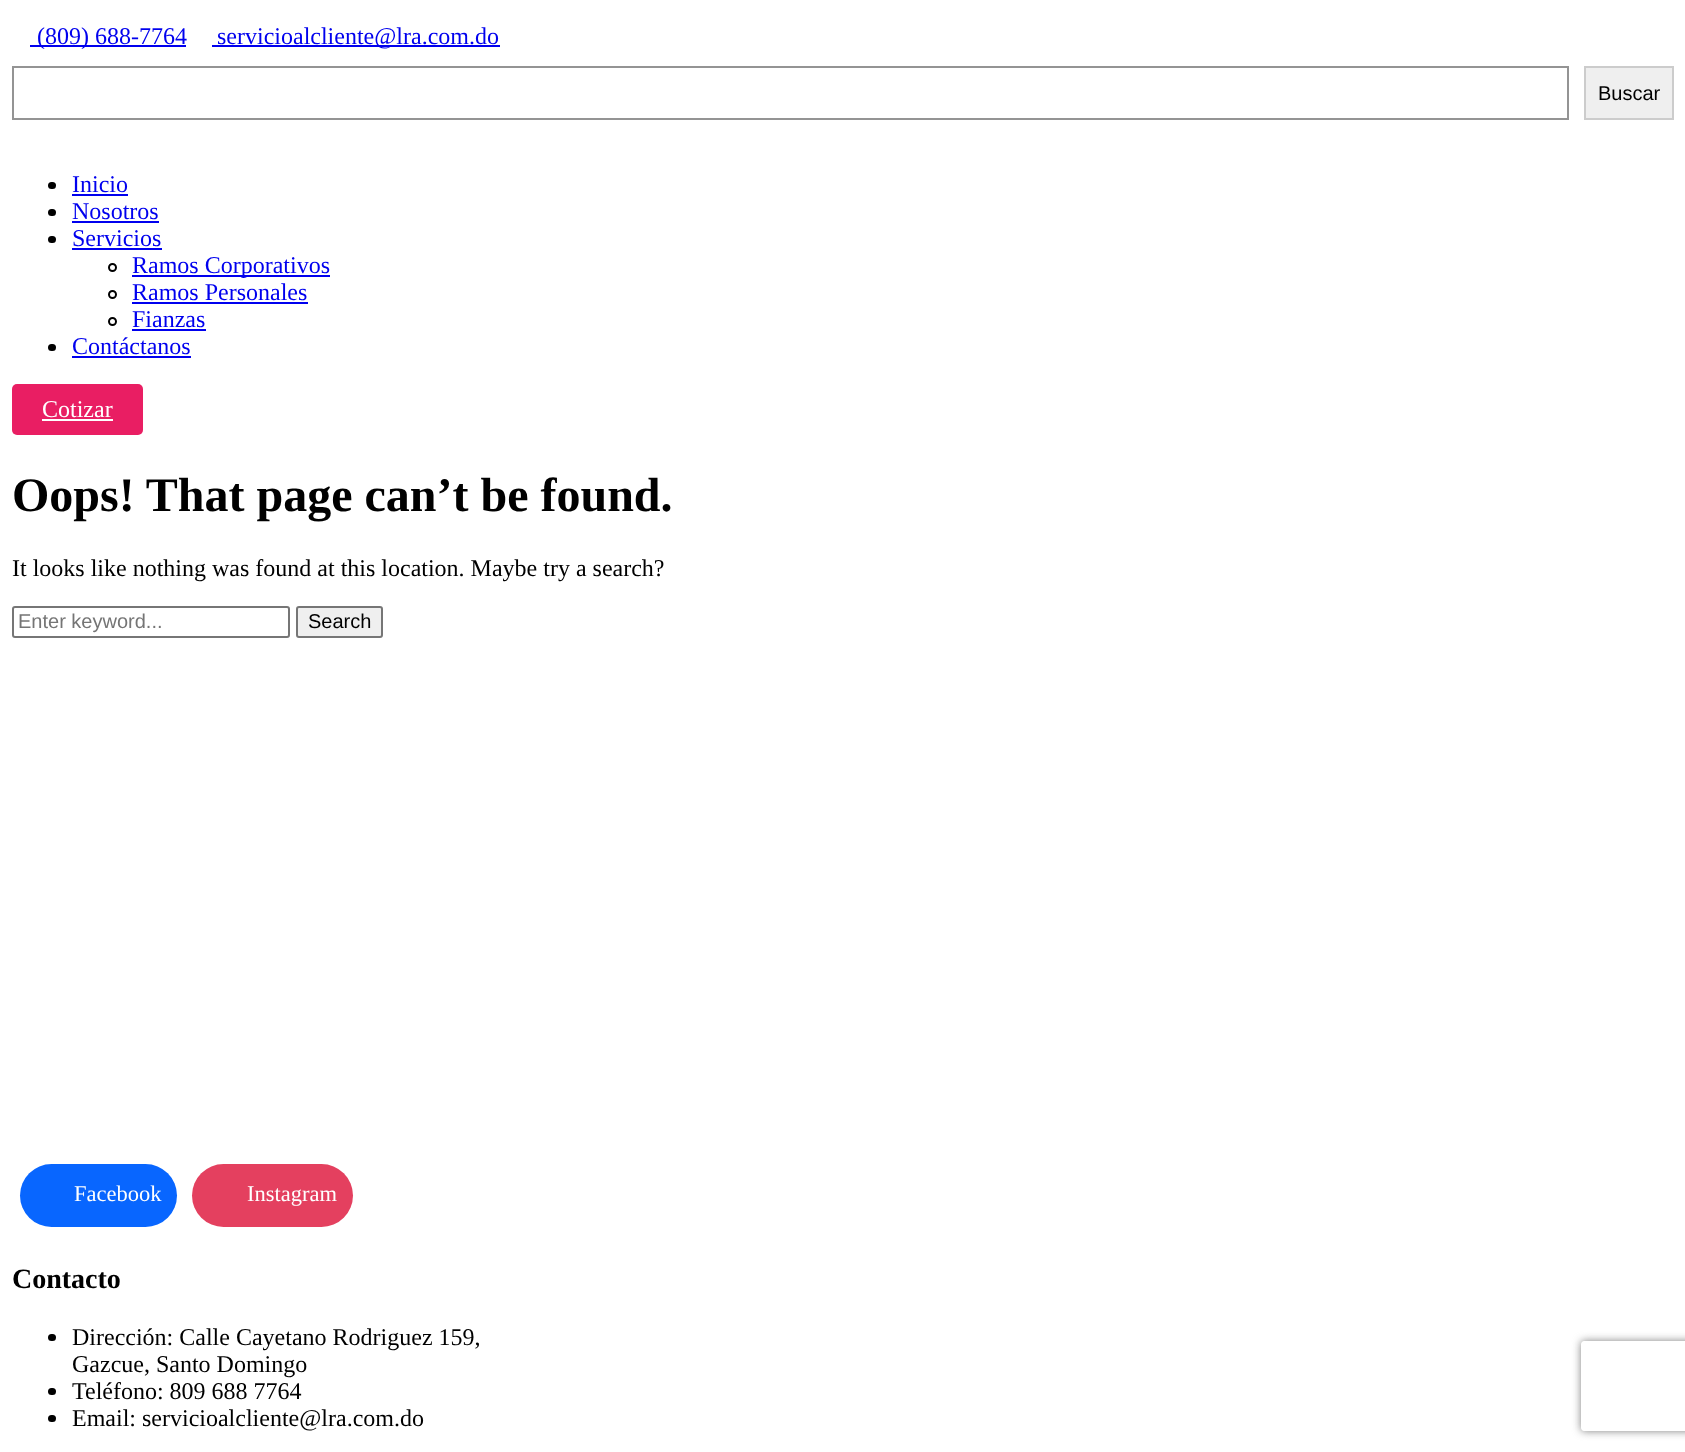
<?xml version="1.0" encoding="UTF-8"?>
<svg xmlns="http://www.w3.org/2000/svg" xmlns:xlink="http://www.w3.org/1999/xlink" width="1685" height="1452">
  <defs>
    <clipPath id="clip1"><path d="M 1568 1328 h 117 v 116 h -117 z m 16 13 h 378 c 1.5 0 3 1.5 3 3 v 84 c 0 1.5 -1.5 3 -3 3 h -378 c -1.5 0 -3 -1.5 -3 -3 v -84 c 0 -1.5 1.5 -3 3 -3 z" clip-rule="evenodd" /></clipPath>
  </defs>
  <rect width="100%" height="100%" fill="#ffffff" />
  <rect x="30" y="45" width="156" height="2" fill="#0000ee" />
  <rect x="212" y="45" width="288" height="2" fill="#0000ee" />
  <rect x="13" y="67" width="1555" height="52" fill="none" stroke="#949494" stroke-width="2" />
  <rect x="1585" y="67" width="88" height="52" fill="#efefef" stroke="#cccccc" stroke-width="2" />
  <rect x="48" y="182" width="8" height="7" rx="3.5" fill="#000000" />
  <rect x="72" y="194" width="56" height="2" fill="#0000ee" />
  <rect x="48" y="209" width="8" height="7" rx="3.5" fill="#000000" />
  <rect x="72" y="221" width="87" height="2" fill="#0000ee" />
  <rect x="48" y="236" width="8" height="7" rx="3.5" fill="#000000" />
  <rect x="72" y="248" width="90" height="2" fill="#0000ee" />
  <circle cx="112.5" cy="267.5" r="3.5" fill="none" stroke="#000000" stroke-width="2" />
  <rect x="132" y="275" width="198" height="2" fill="#0000ee" />
  <circle cx="112.5" cy="294.5" r="3.5" fill="none" stroke="#000000" stroke-width="2" />
  <rect x="132" y="302" width="176" height="2" fill="#0000ee" />
  <circle cx="112.5" cy="321.5" r="3.5" fill="none" stroke="#000000" stroke-width="2" />
  <rect x="132" y="329" width="74" height="2" fill="#0000ee" />
  <rect x="48" y="344" width="8" height="7" rx="3.5" fill="#000000" />
  <rect x="72" y="356" width="119" height="2" fill="#0000ee" />
  <rect x="12" y="384" width="131" height="51" rx="5" fill="#e91e63" />
  <rect x="42" y="419" width="71" height="2" fill="#ffffff" />
  <rect x="13" y="607" width="276" height="30" rx="2" fill="none" stroke="#767676" stroke-width="2" />
  <rect x="297" y="607" width="85" height="30" rx="2" fill="#efefef" stroke="#767676" stroke-width="2" />
  <rect x="20" y="1164" width="157" height="63" rx="31.5" fill="#0866ff" />
  <rect x="192" y="1164" width="161" height="63" rx="31.5" fill="#e4405f" />
  <rect x="48" y="1334" width="8" height="7" rx="3.5" fill="#000000" />
  <rect x="48" y="1388" width="8" height="7" rx="3.5" fill="#000000" />
  <rect x="48" y="1415" width="8" height="7" rx="3.5" fill="#000000" />
  <g clip-path="url(#clip1)">
    <rect x="1581" y="1341" width="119" height="90" rx="3" fill="#808080" filter="blur(4px)" />
  </g>
  <text x="37" y="44" style="font-family: Liberation Serif; font-size: 24px; fill: #0000ee">(809) 688-7764</text>
  <text x="217" y="44" style="font-family: Liberation Serif; font-size: 24px; fill: #0000ee">servicioalcliente@lra.com.do</text>
  <text x="1598" y="100" style="font-family: Liberation Sans; font-size: 20px; fill: #000000">Buscar</text>
  <text x="72" y="192" style="font-family: Liberation Serif; font-size: 24px; fill: #0000ee">Inicio</text>
  <text x="72" y="219" style="font-family: Liberation Serif; font-size: 24px; fill: #0000ee">Nosotros</text>
  <text x="72" y="246" style="font-family: Liberation Serif; font-size: 24px; fill: #0000ee">Servicios</text>
  <text x="132" y="273" style="font-family: Liberation Serif; font-size: 24px; fill: #0000ee">Ramos Corporativos</text>
  <text x="132" y="300" style="font-family: Liberation Serif; font-size: 24px; fill: #0000ee">Ramos Personales</text>
  <text x="132" y="327" style="font-family: Liberation Serif; font-size: 24px; fill: #0000ee">Fianzas</text>
  <text x="72" y="354" style="font-family: Liberation Serif; font-size: 24px; fill: #0000ee">Contáctanos</text>
  <text x="42" y="417" style="font-family: Liberation Serif; font-size: 24px; fill: #ffffff">Cotizar</text>
  <text x="12" y="511" style="font-family: Liberation Serif; font-size: 48px; font-weight: bold; fill: #000000">Oops! That page can’t be found.</text>
  <text x="12" y="576" style="font-family: Liberation Serif; font-size: 24px; fill: #000000">It looks like nothing was found at this location. Maybe try a search?</text>
  <text x="18" y="628" style="font-family: Liberation Sans; font-size: 20px; fill: #757575">Enter keyword...</text>
  <text x="308" y="628" style="font-family: Liberation Sans; font-size: 20px; fill: #000000">Search</text>
  <text x="74" y="1201" style="font-family: Liberation Serif; font-size: 22.5px; fill: #ffffff">Facebook</text>
  <text x="247" y="1201" style="font-family: Liberation Serif; font-size: 22.5px; fill: #ffffff">Instagram</text>
  <text x="12" y="1288" style="font-family: Liberation Serif; font-size: 28px; font-weight: bold; fill: #000000">Contacto</text>
  <text x="72" y="1345" style="font-family: Liberation Serif; font-size: 24px; fill: #000000">Dirección: Calle Cayetano Rodriguez 159,</text>
  <text x="72" y="1372" style="font-family: Liberation Serif; font-size: 24px; fill: #000000">Gazcue, Santo Domingo</text>
  <text x="72" y="1399" style="font-family: Liberation Serif; font-size: 24px; fill: #000000">Teléfono: 809 688 7764</text>
  <text x="72" y="1426" style="font-family: Liberation Serif; font-size: 24px; fill: #000000">Email: servicioalcliente@lra.com.do</text>
</svg>
